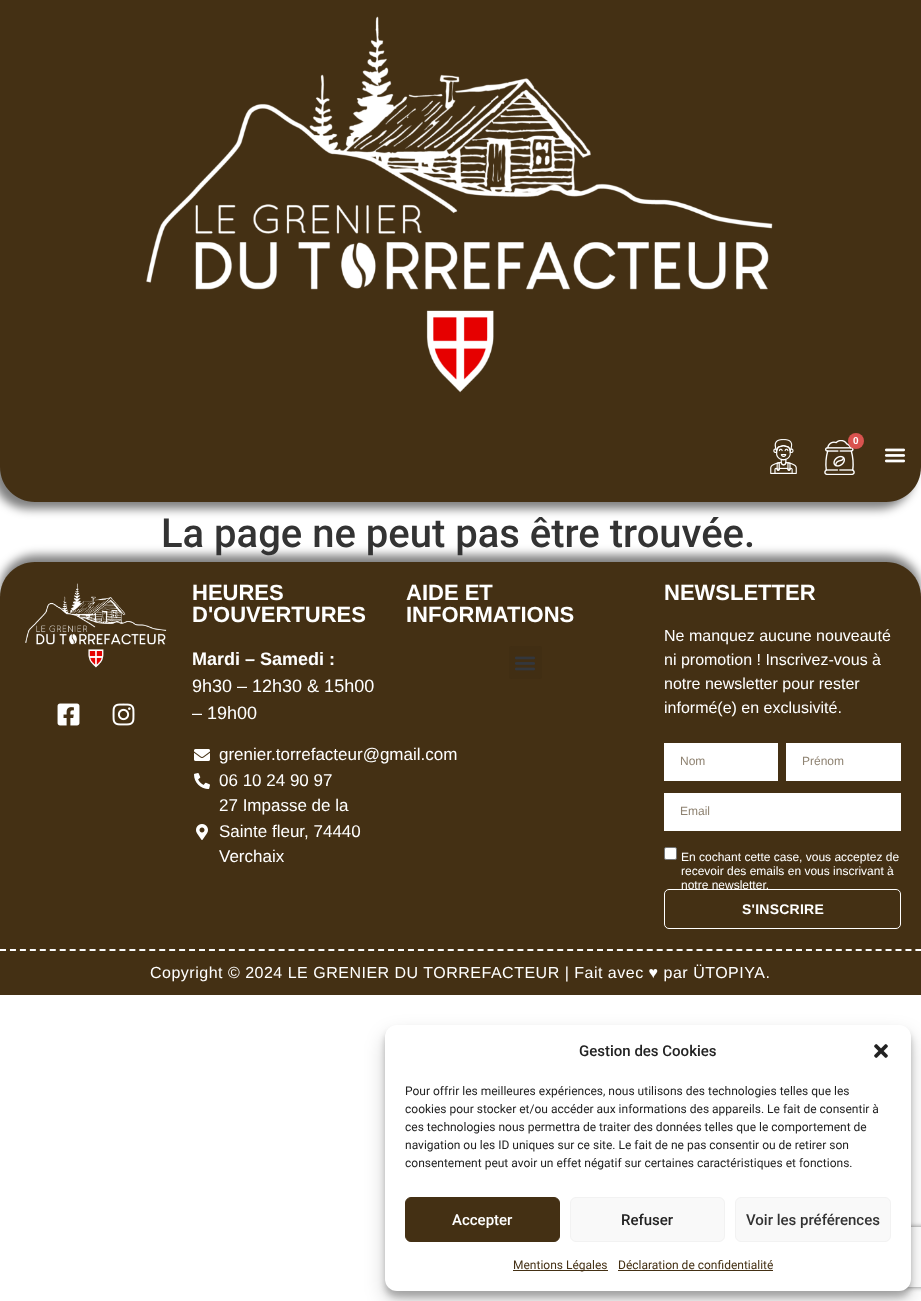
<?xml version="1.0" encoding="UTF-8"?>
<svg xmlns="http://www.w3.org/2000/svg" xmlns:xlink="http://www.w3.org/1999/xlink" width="921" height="1301">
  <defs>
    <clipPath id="clip1"><path d="M 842 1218 h 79 v 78 h -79 z m 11 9 h 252 c 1 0 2 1 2 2 v 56 c 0 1 -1 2 -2 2 h -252 c -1 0 -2 -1 -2 -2 v -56 c 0 -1 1 -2 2 -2 z" clip-rule="evenodd" /></clipPath>
  </defs>
  <rect width="100%" height="100%" fill="#ffffff" />
  <rect x="-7" y="7" width="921" height="502" rx="35" fill="#000000" fill-opacity="0.5" filter="blur(5px)" />
  <path d="M 0 0 h 921 v 467 c 0 19.5 -15.5 35 -35 35 h -851 c -19.5 0 -35 -15.5 -35 -35 z" fill="#443014" />
  <image x="146" y="16" width="627" height="377" xlink:href="image1.png" />
  <image x="770" y="439" width="27" height="35" xlink:href="image2.png" />
  <image x="824" y="440" width="31" height="35" xlink:href="image3.png" />
  <circle cx="856" cy="441" r="8" fill="#d9534f" />
  <image x="884" y="448" width="22" height="15" xlink:href="image4.png" />
  <rect y="949" width="921" height="46" fill="#443014" />
  <path d="M 0 950 h 921" fill="none" stroke="#ffffff" stroke-width="2" stroke-dasharray="6 3.95" />
  <rect y="555" width="921" height="387" rx="35" fill="#000000" fill-opacity="0.5" filter="blur(5px)" />
  <path d="M 35 562 h 851 c 19.5 0 35 15.5 35 35 v 352 h -921 v -352 c 0 -19.5 15.5 -35 35 -35 z" fill="#443014" />
  <image x="25" y="583" width="142" height="85" xlink:href="image5.png" />
  <image x="57" y="703" width="23" height="23" xlink:href="image6.png" />
  <image x="112" y="703" width="23" height="23" xlink:href="image7.png" />
  <image x="194" y="749" width="16" height="12" xlink:href="image8.png" />
  <image x="194" y="773" width="16" height="16" xlink:href="image9.png" />
  <image x="196" y="824" width="12" height="16" xlink:href="image10.png" />
  <rect x="509" y="646" width="33" height="33" rx="3" fill="#412e13" />
  <image x="515" y="656" width="20" height="15" xlink:href="image11.png" />
  <rect x="664" y="743" width="114" height="38" fill="#ffffff" />
  <rect x="786" y="743" width="115" height="38" fill="#ffffff" />
  <rect x="664" y="793" width="237" height="38" fill="#ffffff" />
  <rect x="664.5" y="847.5" width="12" height="12" rx="1.5" fill="#ffffff" stroke="#767676" />
  <rect x="664.5" y="889.5" width="236" height="39" rx="4.5" fill="none" stroke="#ffffff" />
  <g clip-path="url(#clip1)">
    <rect x="851" y="1227" width="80" height="60" rx="2" fill="#808080" filter="blur(2.5px)" />
  </g>
  <rect x="385" y="1031" width="526" height="266" rx="12" fill="#000000" fill-opacity="0.23" filter="blur(3px)" />
  <rect x="385" y="1035" width="526" height="266" rx="12" fill="#000000" fill-opacity="0.19" filter="blur(10px)" />
  <rect x="385" y="1025" width="526" height="266" rx="12" fill="#ffffff" />
  <image x="874" y="1044" width="14" height="14" xlink:href="image12.png" />
  <rect x="405.5" y="1197.5" width="154" height="44" rx="5.5" fill="#443014" stroke="#443014" />
  <rect x="570.5" y="1197.5" width="154" height="44" rx="5.5" fill="#f9f9f9" stroke="#f2f2f2" />
  <rect x="735.5" y="1197.5" width="155" height="44" rx="5.5" fill="#f9f9f9" stroke="#f2f2f2" />
  <rect x="513" y="1270" width="95" height="1" fill="#443014" />
  <rect x="618" y="1270" width="155" height="1" fill="#443014" />
  <text x="853" y="444" style="font-family: Liberation Sans; font-size: 10px; font-weight: bold; fill: #ffffff">0</text>
  <text x="161" y="547" style="font-family: Roboto; font-size: 40px; font-weight: 500; fill: #333333">La page ne peut pas être trouvée.</text>
  <text x="192" y="600" style="font-family: Liberation Sans; font-size: 22px; font-weight: bold; fill: #ffffff">HEURES</text>
  <text x="192" y="622" style="font-family: Liberation Sans; font-size: 22px; font-weight: bold; fill: #ffffff">D'OUVERTURES</text>
  <text x="192" y="665" style="font-family: Liberation Sans; font-size: 18px; font-weight: bold; fill: #ffffff">Mardi – Samedi :</text>
  <text x="192" y="692" style="font-family: Liberation Sans; font-size: 18px; fill: #ffffff">9h30 – 12h30 &amp; 15h00</text>
  <text x="192" y="719" style="font-family: Liberation Sans; font-size: 18px; fill: #ffffff">– 19h00</text>
  <text x="219" y="760" style="font-family: Liberation Sans; font-size: 17px; fill: #ffffff">grenier.torrefacteur@gmail.com</text>
  <text x="219" y="786" style="font-family: Liberation Sans; font-size: 17px; fill: #ffffff">06 10 24 90 97</text>
  <text x="219" y="811" style="font-family: Liberation Sans; font-size: 17px; fill: #ffffff">27 Impasse de la</text>
  <text x="219" y="837" style="font-family: Liberation Sans; font-size: 17px; fill: #ffffff">Sainte fleur, 74440</text>
  <text x="219" y="862" style="font-family: Liberation Sans; font-size: 17px; fill: #ffffff">Verchaix</text>
  <text x="406" y="600" style="font-family: Liberation Sans; font-size: 22px; font-weight: bold; fill: #ffffff">AIDE ET</text>
  <text x="406" y="622" style="font-family: Liberation Sans; font-size: 22px; font-weight: bold; fill: #ffffff">INFORMATIONS</text>
  <text x="664" y="600" style="font-family: Liberation Sans; font-size: 22px; font-weight: bold; fill: #ffffff">NEWSLETTER</text>
  <text x="664" y="641" style="font-family: Liberation Sans; font-size: 16px; fill: #ffffff">Ne manquez aucune nouveauté</text>
  <text x="664" y="665" style="font-family: Liberation Sans; font-size: 16px; fill: #ffffff">ni promotion ! Inscrivez-vous à</text>
  <text x="664" y="689" style="font-family: Liberation Sans; font-size: 16px; fill: #ffffff">notre newsletter pour rester</text>
  <text x="664" y="713" style="font-family: Liberation Sans; font-size: 16px; fill: #ffffff">informé(e) en exclusivité.</text>
  <text x="680" y="765" style="font-family: Liberation Sans; font-size: 12px; fill: #8f8372">Nom</text>
  <text x="802" y="765" style="font-family: Liberation Sans; font-size: 12px; fill: #8f8372">Prénom</text>
  <text x="680" y="815" style="font-family: Liberation Sans; font-size: 12px; fill: #8f8372">Email</text>
  <text x="681" y="861" style="font-family: Liberation Sans; font-size: 12px; fill: #ffffff">En cochant cette case, vous acceptez de</text>
  <text x="681" y="875" style="font-family: Liberation Sans; font-size: 12px; fill: #ffffff">recevoir des emails en vous inscrivant à</text>
  <text x="681" y="889" style="font-family: Liberation Sans; font-size: 12px; fill: #ffffff">notre newsletter.</text>
  <text x="742" y="914" style="font-family: Liberation Sans; font-size: 14px; font-weight: bold; letter-spacing: 0.25px; fill: #ffffff">S'INSCRIRE</text>
  <text x="150" y="978" style="font-family: Liberation Sans; font-size: 16px; letter-spacing: 0.5px; fill: #ffffff">Copyright © 2024 LE GRENIER DU TORREFACTEUR | Fait avec ♥ par ÜTOPIYA.</text>
  <text x="579" y="1056" style="font-family: Roboto; font-size: 15px; font-weight: 500; fill: #222222">Gestion des Cookies</text>
  <text x="405" y="1095" style="font-family: Roboto; font-size: 12px; fill: #222222">Pour offrir les meilleures expériences, nous utilisons des technologies telles que les</text>
  <text x="405" y="1113" style="font-family: Roboto; font-size: 12px; fill: #222222">cookies pour stocker et/ou accéder aux informations des appareils. Le fait de consentir à</text>
  <text x="405" y="1131" style="font-family: Roboto; font-size: 12px; fill: #222222">ces technologies nous permettra de traiter des données telles que le comportement de</text>
  <text x="405" y="1149" style="font-family: Roboto; font-size: 12px; fill: #222222">navigation ou les ID uniques sur ce site. Le fait de ne pas consentir ou de retirer son</text>
  <text x="405" y="1167" style="font-family: Roboto; font-size: 12px; fill: #222222">consentement peut avoir un effet négatif sur certaines caractéristiques et fonctions.</text>
  <text x="452" y="1225" style="font-family: Roboto; font-size: 15px; font-weight: 500; fill: #ffffff">Accepter</text>
  <text x="621" y="1225" style="font-family: Roboto; font-size: 15px; font-weight: 500; fill: #222222">Refuser</text>
  <text x="746" y="1225" style="font-family: Roboto; font-size: 15px; font-weight: 500; fill: #333333">Voir les préférences</text>
  <text x="513" y="1269" style="font-family: Roboto; font-size: 12px; fill: #443014">Mentions Légales</text>
  <text x="618" y="1269" style="font-family: Roboto; font-size: 12px; fill: #443014">Déclaration de confidentialité</text>
</svg>
